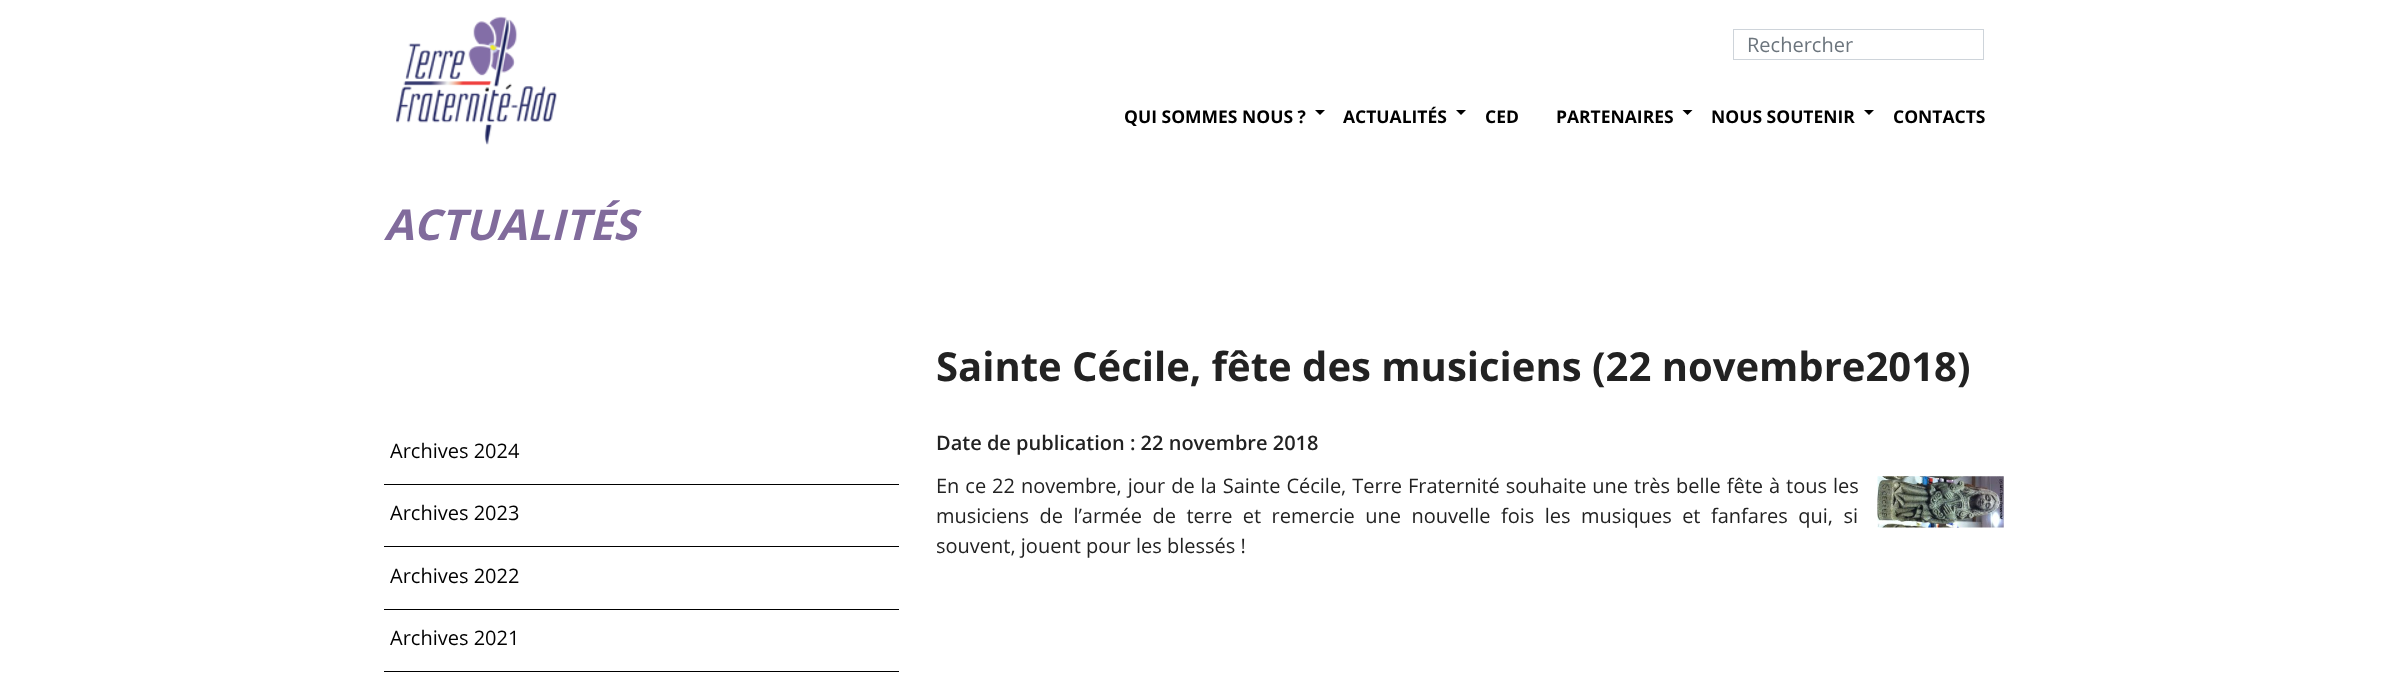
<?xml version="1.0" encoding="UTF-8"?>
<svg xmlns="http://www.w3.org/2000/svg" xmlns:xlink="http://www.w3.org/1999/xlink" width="2387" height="689">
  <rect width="100%" height="100%" fill="#ffffff" />
  <image x="396" y="16" width="161" height="129" xlink:href="image1.png" />
  <rect x="1733.5" y="29.5" width="250" height="30" fill="none" stroke="#ced4da" />
  <path d="M 1315 110 h 10 l -5 5 z" fill="#000000" />
  <path d="M 1456 110 h 10 l -5 5 z" fill="#000000" />
  <path d="M 1682.5 110 h 10 l -5 5 z" fill="#000000" />
  <path d="M 1864 110 h 10 l -5 5 z" fill="#000000" />
  <rect x="384" y="484" width="515" height="1" fill="#000000" />
  <rect x="384" y="546" width="515" height="1" fill="#000000" />
  <rect x="384" y="609" width="515" height="1" fill="#000000" />
  <rect x="384" y="671" width="515" height="1" fill="#000000" />
  <image x="1877" y="476" width="127" height="52" xlink:href="image2.png" />
  <text x="1747" y="52" style="font-family: Open Sans; font-size: 20px; fill: #6c757d">Rechercher</text>
  <text x="1124" y="123" style="font-family: Open Sans; font-size: 17.5px; font-weight: bold; fill: #000000">QUI SOMMES NOUS ?</text>
  <text x="1343" y="123" style="font-family: Open Sans; font-size: 17.5px; font-weight: bold; fill: #000000">ACTUALITÉS</text>
  <text x="1485" y="123" style="font-family: Open Sans; font-size: 17.5px; font-weight: bold; fill: #000000">CED</text>
  <text x="1556" y="123" style="font-family: Open Sans; font-size: 17.5px; font-weight: bold; fill: #000000">PARTENAIRES</text>
  <text x="1711" y="123" style="font-family: Open Sans; font-size: 17.5px; font-weight: bold; fill: #000000">NOUS SOUTENIR</text>
  <text x="1893" y="123" style="font-family: Open Sans; font-size: 17.5px; font-weight: bold; fill: #000000">CONTACTS</text>
  <text x="384" y="240" style="font-family: Open Sans; font-size: 42.5px; font-weight: bold; font-style: italic; fill: #816b9c">ACTUALITÉS</text>
  <text x="390" y="458" style="font-family: Open Sans; font-size: 20px; fill: #000000">Archives 2024</text>
  <text x="390" y="520" style="font-family: Open Sans; font-size: 20px; fill: #000000">Archives 2023</text>
  <text x="390" y="583" style="font-family: Open Sans; font-size: 20px; fill: #000000">Archives 2022</text>
  <text x="390" y="645" style="font-family: Open Sans; font-size: 20px; fill: #000000">Archives 2021</text>
  <text x="936" y="381" style="font-family: Open Sans; font-size: 40px; font-weight: bold; fill: #222222">Sainte Cécile, fête des musiciens (22 novembre2018)</text>
  <text x="936" y="450" style="font-family: Open Sans; font-size: 20px; font-weight: 600; fill: #222222">Date de publication : 22 novembre 2018</text>
  <text x="936" y="493" word-spacing="0.75" style="font-family: Open Sans; font-size: 20px; fill: #222222">En ce 22 novembre, jour de la Sainte Cécile, Terre Fraternité souhaite une très belle fête à tous les</text>
  <text x="936" y="523" word-spacing="5.25" style="font-family: Open Sans; font-size: 20px; fill: #222222">musiciens de l’armée de terre et remercie une nouvelle fois les musiques et fanfares qui, si</text>
  <text x="936" y="553" style="font-family: Open Sans; font-size: 20px; fill: #222222">souvent, jouent pour les blessés !</text>
</svg>
